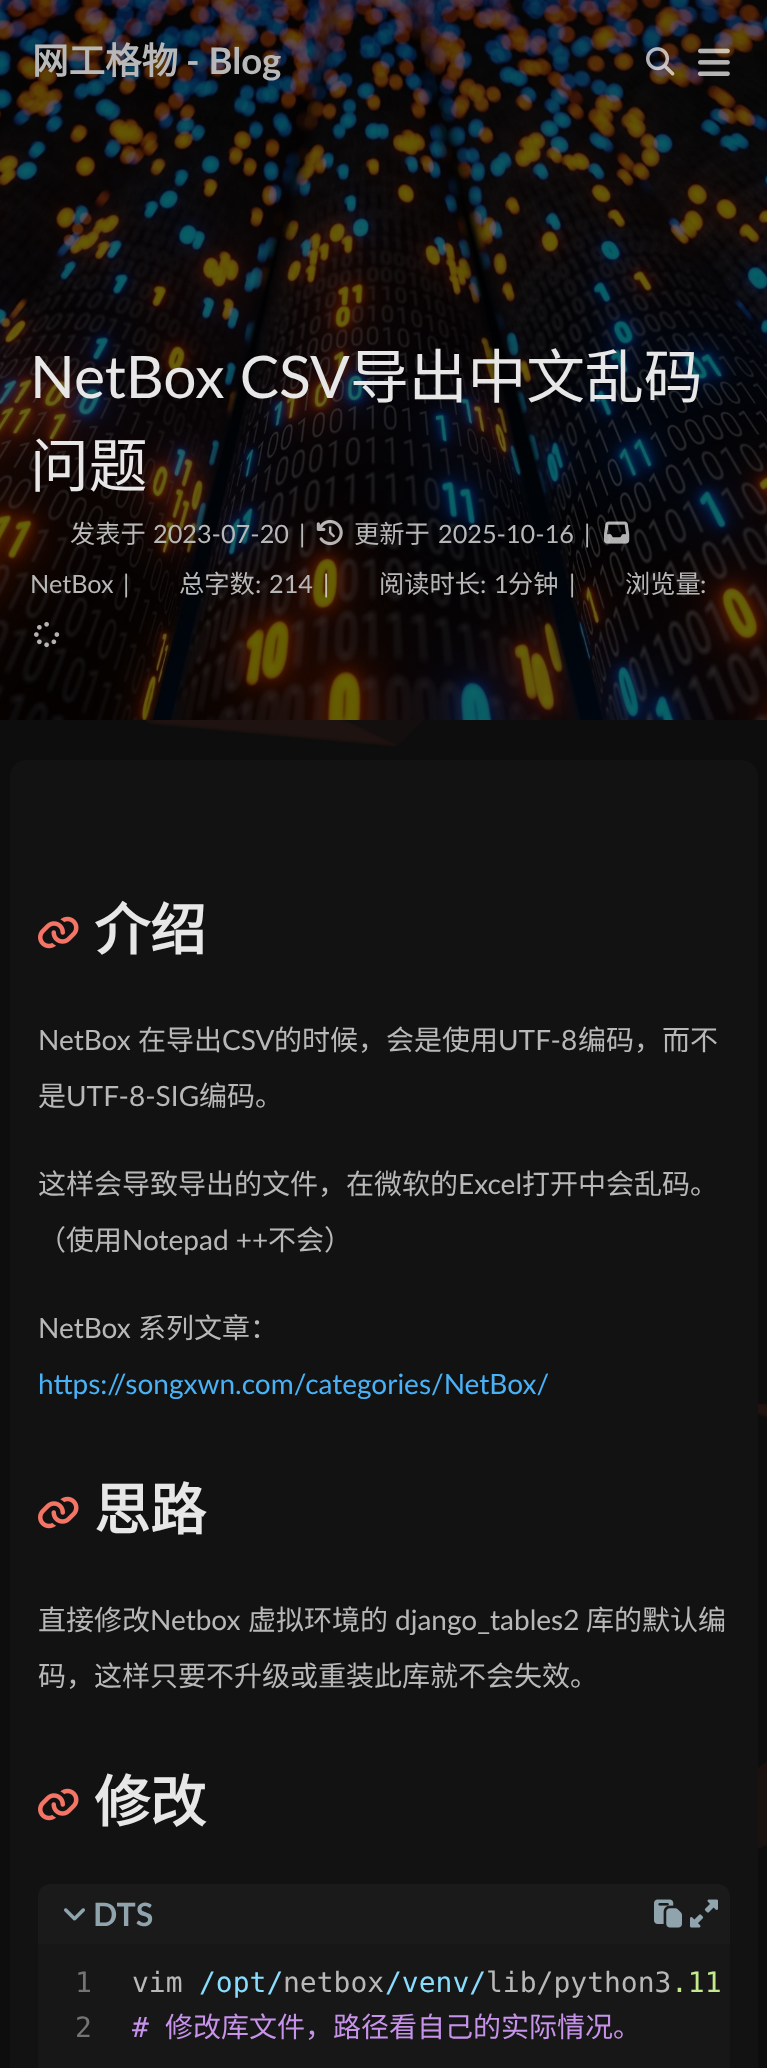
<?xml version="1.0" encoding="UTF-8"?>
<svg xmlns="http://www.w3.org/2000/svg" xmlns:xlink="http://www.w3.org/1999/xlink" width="767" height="2068">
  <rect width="100%" height="100%" fill="#0d0d0d" />
  <image x="0" y="0" width="767" height="720" xlink:href="image1.png" />
  <image x="646" y="47" width="29" height="29" xlink:href="image2.png" />
  <image x="698" y="48" width="32" height="28" xlink:href="image3.png" />
  <image x="316" y="520" width="27" height="26" xlink:href="image4.png" />
  <image x="604" y="521" width="26" height="23" xlink:href="image5.png" />
  <image x="34" y="622" width="26" height="26" xlink:href="image6.png" />
  <image x="145" y="720" width="622" height="1130" xlink:href="image11.png" />
  <rect x="10" y="760" width="748" height="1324" rx="16" fill="#121212" />
  <image x="38" y="916" width="41" height="33" xlink:href="image7.png" />
  <image x="38" y="1496" width="41" height="33" xlink:href="image7.png" />
  <image x="38" y="1788" width="41" height="33" xlink:href="image7.png" />
  <rect x="38" y="1884" width="692" height="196" rx="12" fill="#171717" />
  <path d="M 50 1884 h 668 c 6.5 0 12 5.5 12 12 v 48 h -692 v -48 c 0 -6.5 5.5 -12 12 -12 z" fill="#1a1a1a" />
  <image x="64" y="1908" width="21" height="13" xlink:href="image8.png" />
  <image x="654" y="1899" width="28" height="29" xlink:href="image9.png" />
  <image x="690" y="1899" width="28" height="29" xlink:href="image10.png" />
  <text x="32" y="74" style="font-family: Noto Sans CJK SC; font-size: 36.5px; font-weight: bold; fill: #b8b8b8">网工格物</text>
  <text x="186" y="74" style="font-family: Lato; font-size: 36.5px; font-weight: bold; fill: #b8b8b8">- Blog</text>
  <text x="30" y="398" style="font-family: Lato; font-size: 58.75px; fill: #e8e7e7">NetBox CSV</text>
  <text x="350" y="398" style="font-family: Noto Sans CJK SC; font-size: 58.75px; fill: #e8e7e7">导出中文乱码</text>
  <text x="30" y="487" style="font-family: Noto Sans CJK SC; font-size: 58.75px; fill: #e8e7e7">问题</text>
  <text x="70" y="543" style="font-family: Noto Sans CJK SC; font-size: 25.25px; fill: #b8b8b8">发表于</text>
  <text x="153" y="543" style="font-family: Lato; font-size: 25.25px; fill: #b8b8b8">2023-07-20</text>
  <text x="299" y="543" style="font-family: Lato; font-size: 25.25px; fill: #b8b8b8">|</text>
  <text x="354" y="543" style="font-family: Noto Sans CJK SC; font-size: 25.25px; fill: #b8b8b8">更新于</text>
  <text x="438" y="543" style="font-family: Lato; font-size: 25.25px; fill: #b8b8b8">2025-10-16</text>
  <text x="584" y="543" style="font-family: Lato; font-size: 25.25px; fill: #b8b8b8">|</text>
  <text x="30" y="593" style="font-family: Lato; font-size: 25.25px; fill: #b8b8b8">NetBox</text>
  <text x="123" y="593" style="font-family: Lato; font-size: 25.25px; fill: #b8b8b8">|</text>
  <text x="179" y="593" style="font-family: Noto Sans CJK SC; font-size: 25.25px; fill: #b8b8b8">总字数</text>
  <text x="255" y="593" style="font-family: Lato; font-size: 25.25px; fill: #b8b8b8">:</text>
  <text x="269" y="593" style="font-family: Lato; font-size: 25.25px; fill: #b8b8b8">214</text>
  <text x="323" y="593" style="font-family: Lato; font-size: 25.25px; fill: #ccc3b3">|</text>
  <text x="379" y="593" style="font-family: Noto Sans CJK SC; font-size: 25.25px; fill: #b8b8b8">阅读时长</text>
  <text x="480" y="593" style="font-family: Lato; font-size: 25.25px; fill: #b8b8b8">:</text>
  <text x="494" y="593" style="font-family: Lato; font-size: 25.25px; fill: #b8b8b8">1</text>
  <text x="508" y="593" style="font-family: Noto Sans CJK SC; font-size: 25.25px; fill: #b8b8b8">分钟</text>
  <text x="569" y="593" style="font-family: Lato; font-size: 25.25px; fill: #b8b8b8">|</text>
  <text x="625" y="593" style="font-family: Noto Sans CJK SC; font-size: 25.25px; fill: #b8b8b8">浏览量</text>
  <text x="700" y="593" style="font-family: Lato; font-size: 25.25px; fill: #b8b8b8">:</text>
  <text x="94" y="950" style="font-family: Noto Sans CJK SC; font-size: 56px; font-weight: bold; fill: #e8e7e7">介绍</text>
  <text x="38" y="1050" style="font-family: Lato; font-size: 28px; fill: #b8b8b8">NetBox</text>
  <text x="138" y="1050" style="font-family: Noto Sans CJK SC; font-size: 28px; fill: #b8b8b8">在导出</text>
  <text x="222" y="1050" style="font-family: Lato; font-size: 28px; fill: #b8b8b8">CSV</text>
  <text x="274" y="1050" style="font-family: Noto Sans CJK SC; font-size: 28px; fill: #b8b8b8">的时候，会是使用</text>
  <text x="498" y="1050" style="font-family: Lato; font-size: 28px; fill: #b8b8b8">UTF-8</text>
  <text x="578" y="1050" style="font-family: Noto Sans CJK SC; font-size: 28px; fill: #b8b8b8">编码，而不</text>
  <text x="38" y="1106" style="font-family: Noto Sans CJK SC; font-size: 28px; fill: #b8b8b8">是</text>
  <text x="66" y="1106" style="font-family: Lato; font-size: 28px; fill: #b8b8b8">UTF-8-SIG</text>
  <text x="199" y="1106" style="font-family: Noto Sans CJK SC; font-size: 28px; fill: #b8b8b8">编码。</text>
  <text x="38" y="1194" style="font-family: Noto Sans CJK SC; font-size: 28px; fill: #b8b8b8">这样会导致导出的文件，在微软的</text>
  <text x="458" y="1194" style="font-family: Lato; font-size: 28px; fill: #b8b8b8">Excel</text>
  <text x="522" y="1194" style="font-family: Noto Sans CJK SC; font-size: 28px; fill: #b8b8b8">打开中会乱码。</text>
  <text x="38" y="1250" style="font-family: Noto Sans CJK SC; font-size: 28px; fill: #b8b8b8">（使用</text>
  <text x="122" y="1250" style="font-family: Lato; font-size: 28px; fill: #b8b8b8">Notepad ++</text>
  <text x="268" y="1250" style="font-family: Noto Sans CJK SC; font-size: 28px; fill: #b8b8b8">不会）</text>
  <text x="38" y="1338" style="font-family: Lato; font-size: 28px; fill: #b8b8b8">NetBox</text>
  <text x="138" y="1338" style="font-family: Noto Sans CJK SC; font-size: 28px; fill: #b8b8b8">系列文章：</text>
  <text x="38" y="1394" style="font-family: Lato; font-size: 28px; fill: #49b1f5">https://songxwn.com/categories/NetBox/</text>
  <text x="94" y="1530" style="font-family: Noto Sans CJK SC; font-size: 56px; font-weight: bold; fill: #e8e7e7">思路</text>
  <text x="38" y="1630" style="font-family: Noto Sans CJK SC; font-size: 28px; fill: #b8b8b8">直接修改</text>
  <text x="150" y="1630" style="font-family: Lato; font-size: 28px; fill: #b8b8b8">Netbox</text>
  <text x="248" y="1630" style="font-family: Noto Sans CJK SC; font-size: 28px; fill: #b8b8b8">虚拟环境的</text>
  <text x="395" y="1630" style="font-family: Lato; font-size: 28px; fill: #b8b8b8">django_tables2</text>
  <text x="586" y="1630" style="font-family: Noto Sans CJK SC; font-size: 28px; fill: #b8b8b8">库的默认编</text>
  <text x="38" y="1686" style="font-family: Noto Sans CJK SC; font-size: 28px; fill: #b8b8b8">码，这样只要不升级或重装此库就不会失效。</text>
  <text x="94" y="1822" style="font-family: Noto Sans CJK SC; font-size: 56px; font-weight: bold; fill: #e8e7e7">修改</text>
  <text x="93" y="1926" style="font-family: Lato; font-size: 32px; font-weight: bold; fill: #90a4ae">DTS</text>
  <text x="75" y="1992" style="font-family: DejaVu Sans Mono; font-size: 28px; fill: #747474">1</text>
  <text x="75" y="2037" style="font-family: DejaVu Sans Mono; font-size: 28px; fill: #747474">2</text>
  <text x="132" y="1992" style="font-family: DejaVu Sans Mono; font-size: 28px; fill: #b8b8b8">vim</text>
  <text x="199" y="1992" style="font-family: DejaVu Sans Mono; font-size: 28px; fill: #89ddff">/opt/</text>
  <text x="283" y="1992" style="font-family: DejaVu Sans Mono; font-size: 28px; fill: #b8b8b8">netbox</text>
  <text x="385" y="1992" style="font-family: DejaVu Sans Mono; font-size: 28px; fill: #89ddff">/venv/</text>
  <text x="486" y="1992" style="font-family: DejaVu Sans Mono; font-size: 28px; fill: #b8b8b8">lib/python3</text>
  <text x="671" y="1992" style="font-family: DejaVu Sans Mono; font-size: 28px; fill: #c3e88d">.11</text>
  <text x="132" y="2037" style="font-family: DejaVu Sans Mono; font-size: 28px; fill: #c792ea">#</text>
  <text x="165" y="2037" style="font-family: Noto Sans CJK SC; font-size: 28px; fill: #c792ea">修改库文件，路径看自己的实际情况。</text>
</svg>
